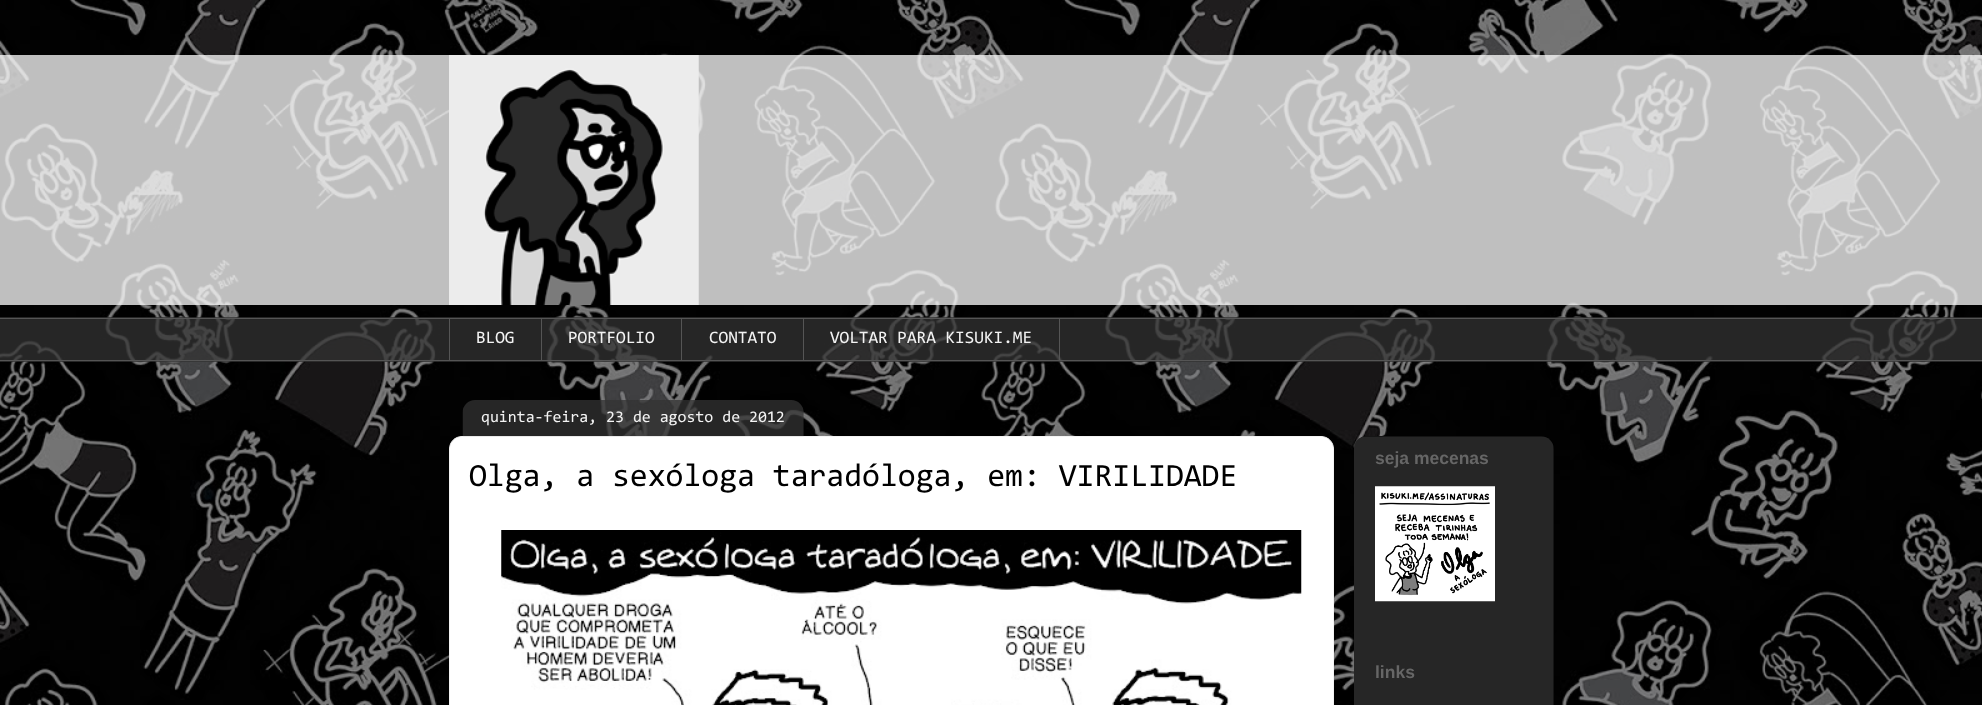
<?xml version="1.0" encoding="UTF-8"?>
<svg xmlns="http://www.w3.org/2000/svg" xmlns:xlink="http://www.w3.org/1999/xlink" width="1982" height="705">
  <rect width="100%" height="100%" fill="#ffffff" />
  <image x="0" y="0" width="1982" height="705" xlink:href="image1.png" />
  <rect y="55" width="1982" height="250" fill="#ffffff" fill-opacity="0.75" />
  <image x="449" y="55" width="250" height="250" xlink:href="image2.png" />
  <rect y="317" width="1982" height="45" fill="#333333" fill-opacity="0.75" />
  <rect y="318" width="1982" height="1" fill="#555555" />
  <rect x="449" y="318" width="1" height="43" fill="#555555" />
  <rect x="541" y="318" width="1" height="43" fill="#555555" />
  <rect x="681" y="318" width="1" height="43" fill="#555555" />
  <rect x="803.5" y="318.5" width="256" height="42" fill="none" stroke="#555555" />
  <rect y="360" width="1982" height="1" fill="#555555" />
  <path d="M 462 436.5 h 859 c 7 0 12.5 5.5 12.5 12.5 v 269.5 h -884 v -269.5 c 0 -7 5.5 -12.5 12.5 -12.5 z" fill="#ffffff" stroke="#f3f3f3" />
  <image x="462" y="400" width="342" height="37" xlink:href="image3.png" />
  <image x="501" y="530" width="801" height="175" xlink:href="image4.png" />
  <rect x="1354" y="436" width="200" height="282" rx="13" fill="#000000" />
  <image x="1354" y="436" width="200" height="269" xlink:href="image5.png" />
  <image x="1375" y="486" width="120" height="116" xlink:href="image6.png" />
  <text x="476" y="343" style="font-family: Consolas; font-size: 17.5px; fill: #f3f3f3">BLOG</text>
  <text x="568" y="343" style="font-family: Consolas; font-size: 17.5px; fill: #f3f3f3">PORTFOLIO</text>
  <text x="709" y="343" style="font-family: Consolas; font-size: 17.5px; fill: #f3f3f3">CONTATO</text>
  <text x="830" y="343" style="font-family: Consolas; font-size: 17.5px; fill: #f3f3f3">VOLTAR PARA KISUKI.ME</text>
  <text x="481" y="422" style="font-family: Consolas; font-size: 16.25px; fill: #f3f3f3">quinta-feira, 23 de agosto de 2012</text>
  <text x="469" y="486" style="font-family: Consolas; font-size: 32.5px; fill: #000000">Olga, a sexóloga taradóloga, em: VIRILIDADE</text>
  <text x="1375" y="464" style="font-family: Liberation Sans; font-size: 17.5px; font-weight: bold; fill: #666666">seja mecenas</text>
  <text x="1375" y="678" style="font-family: Liberation Sans; font-size: 17.5px; font-weight: bold; fill: #666666">links</text>
</svg>
